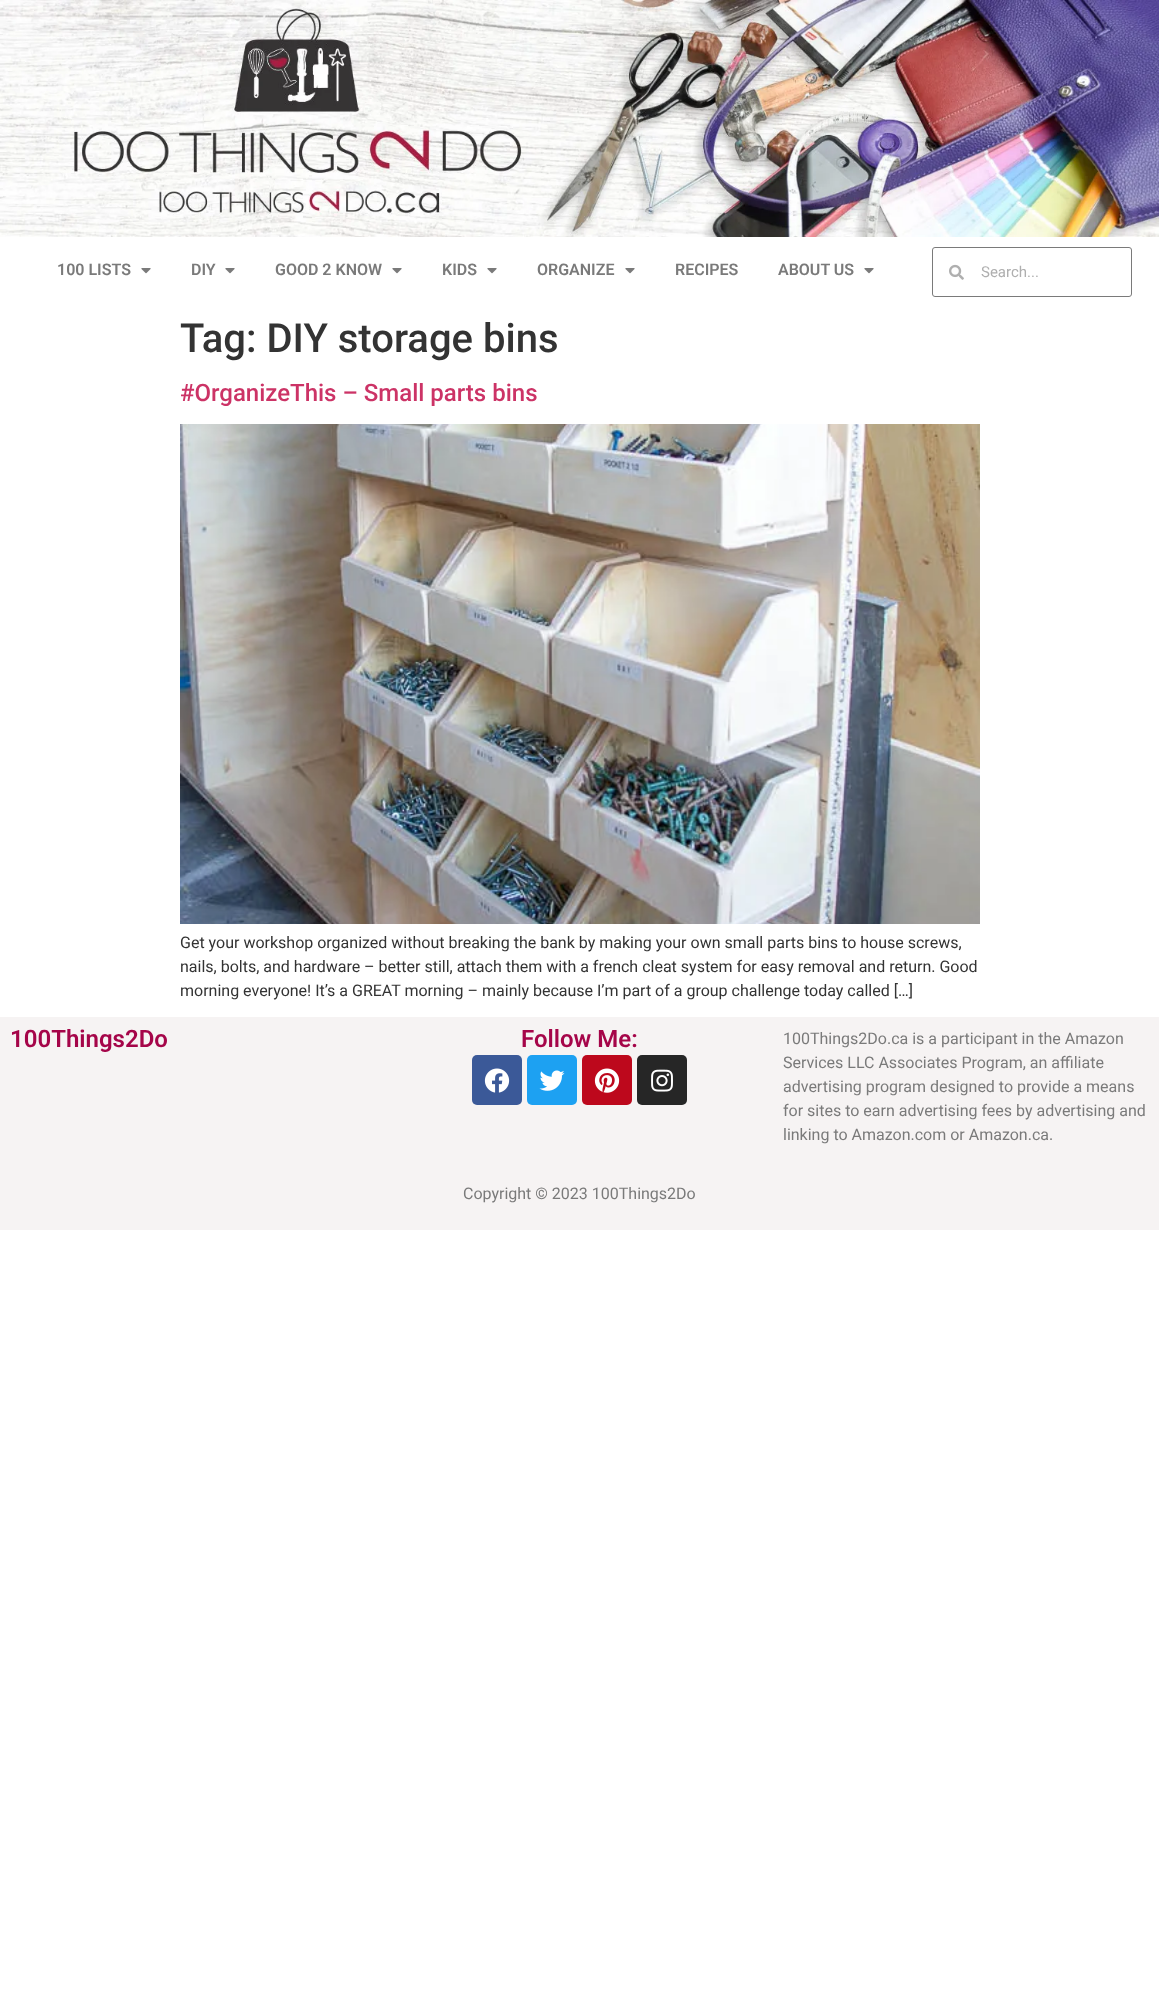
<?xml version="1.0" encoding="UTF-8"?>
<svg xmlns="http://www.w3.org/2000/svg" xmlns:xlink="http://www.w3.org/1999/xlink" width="1159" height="1999">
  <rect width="100%" height="100%" fill="#ffffff" />
  <image x="0" y="0" width="1159" height="237" xlink:href="image1.png" />
  <image x="141" y="268" width="10" height="6" xlink:href="image2.png" />
  <image x="225" y="268" width="10" height="6" xlink:href="image2.png" />
  <image x="392" y="268" width="10" height="6" xlink:href="image2.png" />
  <image x="487" y="268" width="10" height="6" xlink:href="image2.png" />
  <image x="625" y="268" width="10" height="6" xlink:href="image2.png" />
  <image x="864" y="268" width="10" height="6" xlink:href="image2.png" />
  <rect x="932.5" y="247.5" width="199" height="49" rx="2.5" fill="none" stroke="#7a7a7a" />
  <image x="949" y="264" width="15" height="16" xlink:href="image3.png" />
  <image x="180" y="424" width="800" height="500" xlink:href="image4.png" />
  <rect y="1017" width="1159" height="213" fill="#f6f3f3" />
  <rect x="472" y="1055" width="50" height="50" rx="5" fill="#3b5998" />
  <image x="484" y="1068" width="26" height="25" xlink:href="image5.png" />
  <rect x="527" y="1055" width="50" height="50" rx="5" fill="#1da1f2" />
  <image x="539" y="1070" width="26" height="21" xlink:href="image6.png" />
  <rect x="582" y="1055" width="50" height="50" rx="5" fill="#bd081c" />
  <image x="594" y="1068" width="26" height="25" xlink:href="image7.png" />
  <rect x="637" y="1055" width="50" height="50" rx="5" fill="#262626" />
  <image x="651" y="1069" width="22" height="23" xlink:href="image8.png" />
  <text x="57" y="275" style="font-family: Roboto; font-size: 16px; font-weight: 600; fill: #7a7a7a">100 LISTS</text>
  <text x="191" y="275" style="font-family: Roboto; font-size: 16px; font-weight: 600; fill: #7a7a7a">DIY</text>
  <text x="275" y="275" style="font-family: Roboto; font-size: 16px; font-weight: 600; fill: #7a7a7a">GOOD 2 KNOW</text>
  <text x="442" y="275" style="font-family: Roboto; font-size: 16px; font-weight: 600; fill: #7a7a7a">KIDS</text>
  <text x="537" y="275" style="font-family: Roboto; font-size: 16px; font-weight: 600; fill: #7a7a7a">ORGANIZE</text>
  <text x="675" y="275" style="font-family: Roboto; font-size: 16px; font-weight: 600; fill: #7a7a7a">RECIPES</text>
  <text x="778" y="275" style="font-family: Roboto; font-size: 16px; font-weight: 600; fill: #7a7a7a">ABOUT US</text>
  <text x="981" y="277" style="font-family: Roboto; font-size: 15px; fill: #afafaf">Search...</text>
  <text x="180" y="352" style="font-family: Roboto; font-size: 40px; font-weight: 500; fill: #333333">Tag: DIY storage bins</text>
  <text x="180" y="401" style="font-family: Roboto; font-size: 24px; font-weight: 500; fill: #cc3366">#OrganizeThis – Small parts bins</text>
  <text x="180" y="948" style="font-family: Roboto; font-size: 16px; fill: #333333">Get your workshop organized without breaking the bank by making your own small parts bins to house screws,</text>
  <text x="180" y="972" style="font-family: Roboto; font-size: 16px; fill: #333333">nails, bolts, and hardware – better still, attach them with a french cleat system for easy removal and return. Good</text>
  <text x="180" y="996" style="font-family: Roboto; font-size: 16px; fill: #333333">morning everyone! It’s a GREAT morning – mainly because I’m part of a group challenge today called […]</text>
  <text x="10" y="1047" style="font-family: Roboto; font-size: 24px; font-weight: 600; fill: #a50549">100Things2Do</text>
  <text x="521" y="1047" style="font-family: Roboto; font-size: 24px; font-weight: 600; fill: #a50549">Follow Me:</text>
  <text x="783" y="1044" style="font-family: Roboto; font-size: 16px; fill: #7a7a7a">100Things2Do.ca is a participant in the Amazon</text>
  <text x="783" y="1068" style="font-family: Roboto; font-size: 16px; fill: #7a7a7a">Services LLC Associates Program, an affiliate</text>
  <text x="783" y="1092" style="font-family: Roboto; font-size: 16px; fill: #7a7a7a">advertising program designed to provide a means</text>
  <text x="783" y="1116" style="font-family: Roboto; font-size: 16px; fill: #7a7a7a">for sites to earn advertising fees by advertising and</text>
  <text x="783" y="1140" style="font-family: Roboto; font-size: 16px; fill: #7a7a7a">linking to Amazon.com or Amazon.ca.</text>
  <text x="463" y="1199" style="font-family: Roboto; font-size: 16px; fill: #7a7a7a">Copyright © 2023 100Things2Do</text>
</svg>
